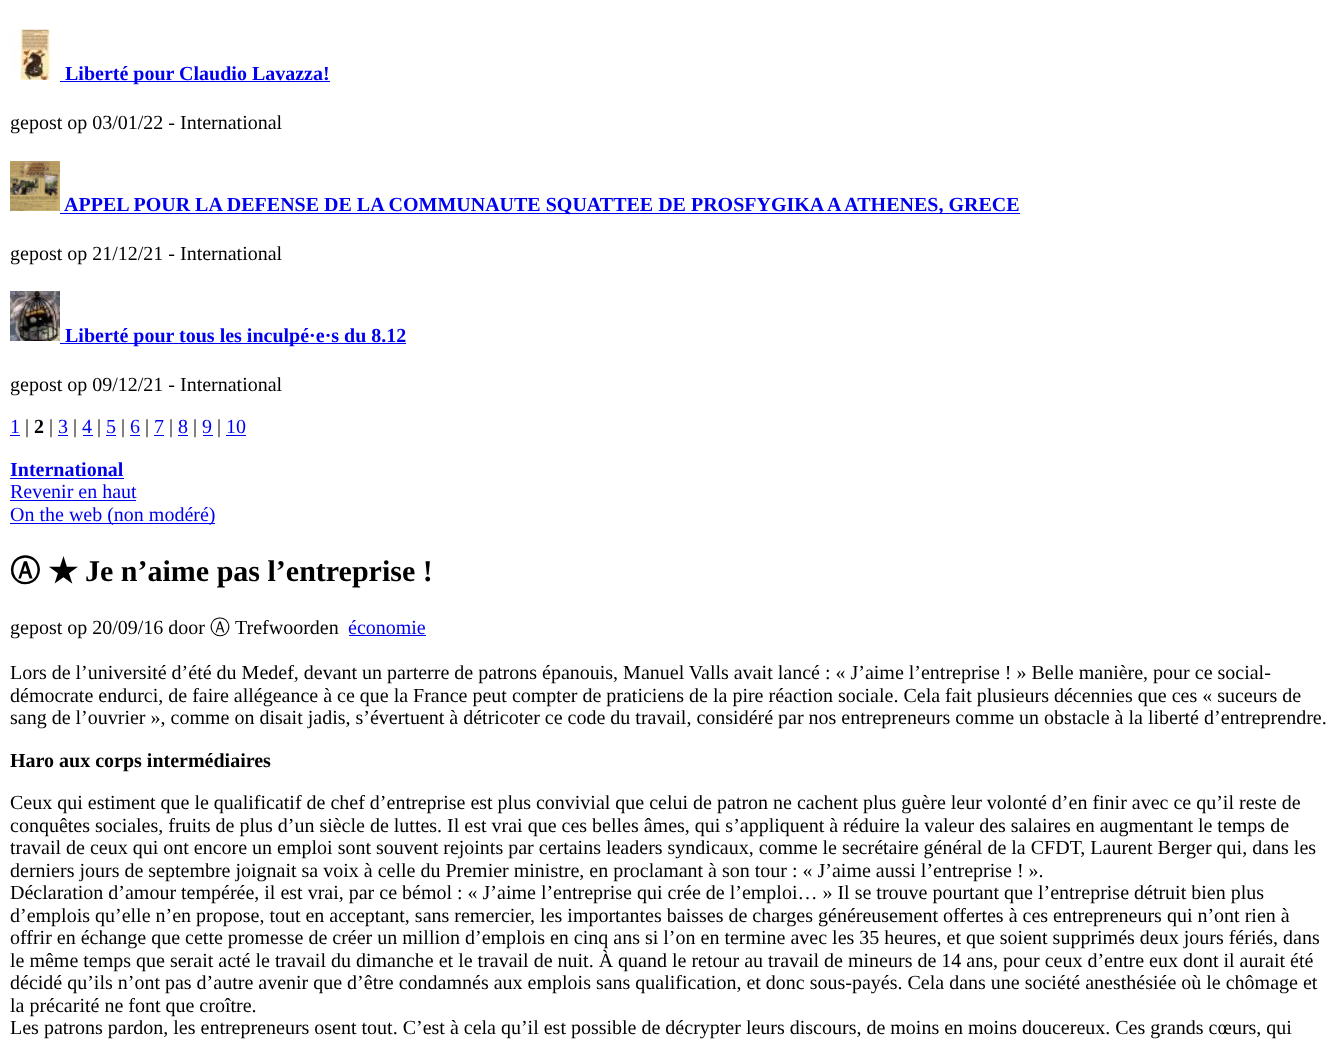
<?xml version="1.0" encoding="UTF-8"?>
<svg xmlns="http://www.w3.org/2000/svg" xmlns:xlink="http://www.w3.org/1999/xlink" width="1339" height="1047">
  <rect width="100%" height="100%" fill="#ffffff" />
  <image x="10" y="29" width="41" height="51" xlink:href="image1.png" />
  <rect x="60" y="81" width="270" height="1" fill="#0000ee" />
  <image x="10" y="161" width="50" height="50" xlink:href="image2.png" />
  <rect x="60" y="213" width="960" height="1" fill="#0000ee" />
  <image x="10" y="291" width="50" height="50" xlink:href="image3.png" />
  <rect x="60" y="343" width="346" height="1" fill="#0000ee" />
  <rect x="10" y="435" width="10" height="1" fill="#0000ee" />
  <rect x="58" y="435" width="10" height="1" fill="#0000ee" />
  <rect x="83" y="435" width="10" height="1" fill="#0000ee" />
  <rect x="106" y="435" width="10" height="1" fill="#0000ee" />
  <rect x="130" y="435" width="10" height="1" fill="#0000ee" />
  <rect x="154" y="435" width="10" height="1" fill="#0000ee" />
  <rect x="178" y="435" width="10" height="1" fill="#0000ee" />
  <rect x="203" y="435" width="10" height="1" fill="#0000ee" />
  <rect x="226" y="435" width="20" height="1" fill="#0000ee" />
  <rect x="10" y="478" width="114" height="1" fill="#0000ee" />
  <rect x="10" y="500" width="126" height="1" fill="#0000ee" />
  <rect x="10" y="523" width="205" height="1" fill="#0000ee" />
  <rect x="349" y="635" width="77" height="1" fill="#0000ee" />
  <text x="65" y="80" style="font-family: Liberation Serif; font-size: 20px; font-weight: bold; fill: #0000ee">Liberté pour Claudio Lavazza!</text>
  <text x="10" y="129" style="font-family: Liberation Serif; font-size: 20px; fill: #000000">gepost op 03/01/22 - International</text>
  <text x="64" y="211" style="font-family: Liberation Serif; font-size: 20px; font-weight: bold; fill: #0000ee">APPEL POUR LA DEFENSE DE LA COMMUNAUTE SQUATTEE DE PROSFYGIKA A ATHENES, GRECE</text>
  <text x="10" y="260" style="font-family: Liberation Serif; font-size: 20px; fill: #000000">gepost op 21/12/21 - International</text>
  <text x="65" y="342" style="font-family: Liberation Serif; font-size: 20px; font-weight: bold; fill: #0000ee">Liberté pour tous les inculpé·e·s du 8.12</text>
  <text x="10" y="391" style="font-family: Liberation Serif; font-size: 20px; fill: #000000">gepost op 09/12/21 - International</text>
  <text x="10" y="433" style="font-family: Liberation Serif; font-size: 20px; fill: #0000ee">1</text>
  <text x="25" y="433" style="font-family: Liberation Serif; font-size: 20px; fill: #000000">|</text>
  <text x="34" y="433" style="font-family: Liberation Serif; font-size: 20px; font-weight: bold; fill: #000000">2</text>
  <text x="49" y="433" style="font-family: Liberation Serif; font-size: 20px; fill: #000000">|</text>
  <text x="58" y="433" style="font-family: Liberation Serif; font-size: 20px; fill: #0000ee">3</text>
  <text x="73" y="433" style="font-family: Liberation Serif; font-size: 20px; fill: #000000">|</text>
  <text x="82" y="433" style="font-family: Liberation Serif; font-size: 20px; fill: #0000ee">4</text>
  <text x="97" y="433" style="font-family: Liberation Serif; font-size: 20px; fill: #000000">|</text>
  <text x="106" y="433" style="font-family: Liberation Serif; font-size: 20px; fill: #0000ee">5</text>
  <text x="121" y="433" style="font-family: Liberation Serif; font-size: 20px; fill: #000000">|</text>
  <text x="130" y="433" style="font-family: Liberation Serif; font-size: 20px; fill: #0000ee">6</text>
  <text x="145" y="433" style="font-family: Liberation Serif; font-size: 20px; fill: #000000">|</text>
  <text x="154" y="433" style="font-family: Liberation Serif; font-size: 20px; fill: #0000ee">7</text>
  <text x="169" y="433" style="font-family: Liberation Serif; font-size: 20px; fill: #000000">|</text>
  <text x="178" y="433" style="font-family: Liberation Serif; font-size: 20px; fill: #0000ee">8</text>
  <text x="193" y="433" style="font-family: Liberation Serif; font-size: 20px; fill: #000000">|</text>
  <text x="202" y="433" style="font-family: Liberation Serif; font-size: 20px; fill: #0000ee">9</text>
  <text x="217" y="433" style="font-family: Liberation Serif; font-size: 20px; fill: #000000">|</text>
  <text x="226" y="433" style="font-family: Liberation Serif; font-size: 20px; fill: #0000ee">10</text>
  <text x="10" y="476" style="font-family: Liberation Serif; font-size: 20px; font-weight: bold; fill: #0000ee">International</text>
  <text x="10" y="498" style="font-family: Liberation Serif; font-size: 20px; fill: #0000ee">Revenir en haut</text>
  <text x="10" y="521" style="font-family: Liberation Serif; font-size: 20px; fill: #0000ee">On the web (non modéré)</text>
  <text x="10" y="581" style="font-family: WenQuanYi Zen Hei; font-size: 30px; font-weight: bold; fill: #000000">Ⓐ</text>
  <text x="48" y="581" style="font-family: WenQuanYi Zen Hei; font-size: 30px; font-weight: bold; fill: #000000">★</text>
  <text x="85" y="581" style="font-family: Liberation Serif; font-size: 30px; font-weight: bold; fill: #000000">Je n’aime pas l’entreprise !</text>
  <text x="10" y="634" style="font-family: Liberation Serif; font-size: 20px; fill: #000000">gepost op 20/09/16 door</text>
  <text x="210" y="634" style="font-family: WenQuanYi Zen Hei; font-size: 20px; font-weight: 500; fill: #000000">Ⓐ</text>
  <text x="235" y="634" style="font-family: Liberation Serif; font-size: 20px; fill: #000000">Trefwoorden</text>
  <text x="348" y="634" style="font-family: Liberation Serif; font-size: 20px; fill: #0000ee">économie</text>
  <text x="10" y="679" style="font-family: Liberation Serif; font-size: 20px; fill: #000000">Lors de l’université d’été du Medef, devant un parterre de patrons épanouis, Manuel Valls avait lancé : « J’aime l’entreprise ! » Belle manière, pour ce social-</text>
  <text x="10" y="702" style="font-family: Liberation Serif; font-size: 20px; fill: #000000">démocrate endurci, de faire allégeance à ce que la France peut compter de praticiens de la pire réaction sociale. Cela fait plusieurs décennies que ces « suceurs de</text>
  <text x="10" y="724" style="font-family: Liberation Serif; font-size: 20px; fill: #000000">sang de l’ouvrier », comme on disait jadis, s’évertuent à détricoter ce code du travail, considéré par nos entrepreneurs comme un obstacle à la liberté d’entreprendre.</text>
  <text x="10" y="767" style="font-family: Liberation Serif; font-size: 20px; font-weight: bold; fill: #000000">Haro aux corps intermédiaires</text>
  <text x="10" y="809" style="font-family: Liberation Serif; font-size: 20px; fill: #000000">Ceux qui estiment que le qualificatif de chef d’entreprise est plus convivial que celui de patron ne cachent plus guère leur volonté d’en finir avec ce qu’il reste de</text>
  <text x="10" y="832" style="font-family: Liberation Serif; font-size: 20px; fill: #000000">conquêtes sociales, fruits de plus d’un siècle de luttes. Il est vrai que ces belles âmes, qui s’appliquent à réduire la valeur des salaires en augmentant le temps de</text>
  <text x="10" y="854" style="font-family: Liberation Serif; font-size: 20px; fill: #000000">travail de ceux qui ont encore un emploi sont souvent rejoints par certains leaders syndicaux, comme le secrétaire général de la CFDT, Laurent Berger qui, dans les</text>
  <text x="10" y="877" style="font-family: Liberation Serif; font-size: 20px; fill: #000000">derniers jours de septembre joignait sa voix à celle du Premier ministre, en proclamant à son tour : « J’aime aussi l’entreprise ! ».</text>
  <text x="10" y="899" style="font-family: Liberation Serif; font-size: 20px; fill: #000000">Déclaration d’amour tempérée, il est vrai, par ce bémol : « J’aime l’entreprise qui crée de l’emploi… » Il se trouve pourtant que l’entreprise détruit bien plus</text>
  <text x="10" y="922" style="font-family: Liberation Serif; font-size: 20px; fill: #000000">d’emplois qu’elle n’en propose, tout en acceptant, sans remercier, les importantes baisses de charges généreusement offertes à ces entrepreneurs qui n’ont rien à</text>
  <text x="10" y="944" style="font-family: Liberation Serif; font-size: 20px; fill: #000000">offrir en échange que cette promesse de créer un million d’emplois en cinq ans si l’on en termine avec les 35 heures, et que soient supprimés deux jours fériés, dans</text>
  <text x="10" y="967" style="font-family: Liberation Serif; font-size: 20px; fill: #000000">le même temps que serait acté le travail du dimanche et le travail de nuit. À quand le retour au travail de mineurs de 14 ans, pour ceux d’entre eux dont il aurait été</text>
  <text x="10" y="989" style="font-family: Liberation Serif; font-size: 20px; fill: #000000">décidé qu’ils n’ont pas d’autre avenir que d’être condamnés aux emplois sans qualification, et donc sous-payés. Cela dans une société anesthésiée où le chômage et</text>
  <text x="10" y="1012" style="font-family: Liberation Serif; font-size: 20px; fill: #000000">la précarité ne font que croître.</text>
  <text x="10" y="1034" style="font-family: Liberation Serif; font-size: 20px; fill: #000000">Les patrons pardon, les entrepreneurs osent tout. C’est à cela qu’il est possible de décrypter leurs discours, de moins en moins doucereux. Ces grands cœurs, qui</text>
</svg>
